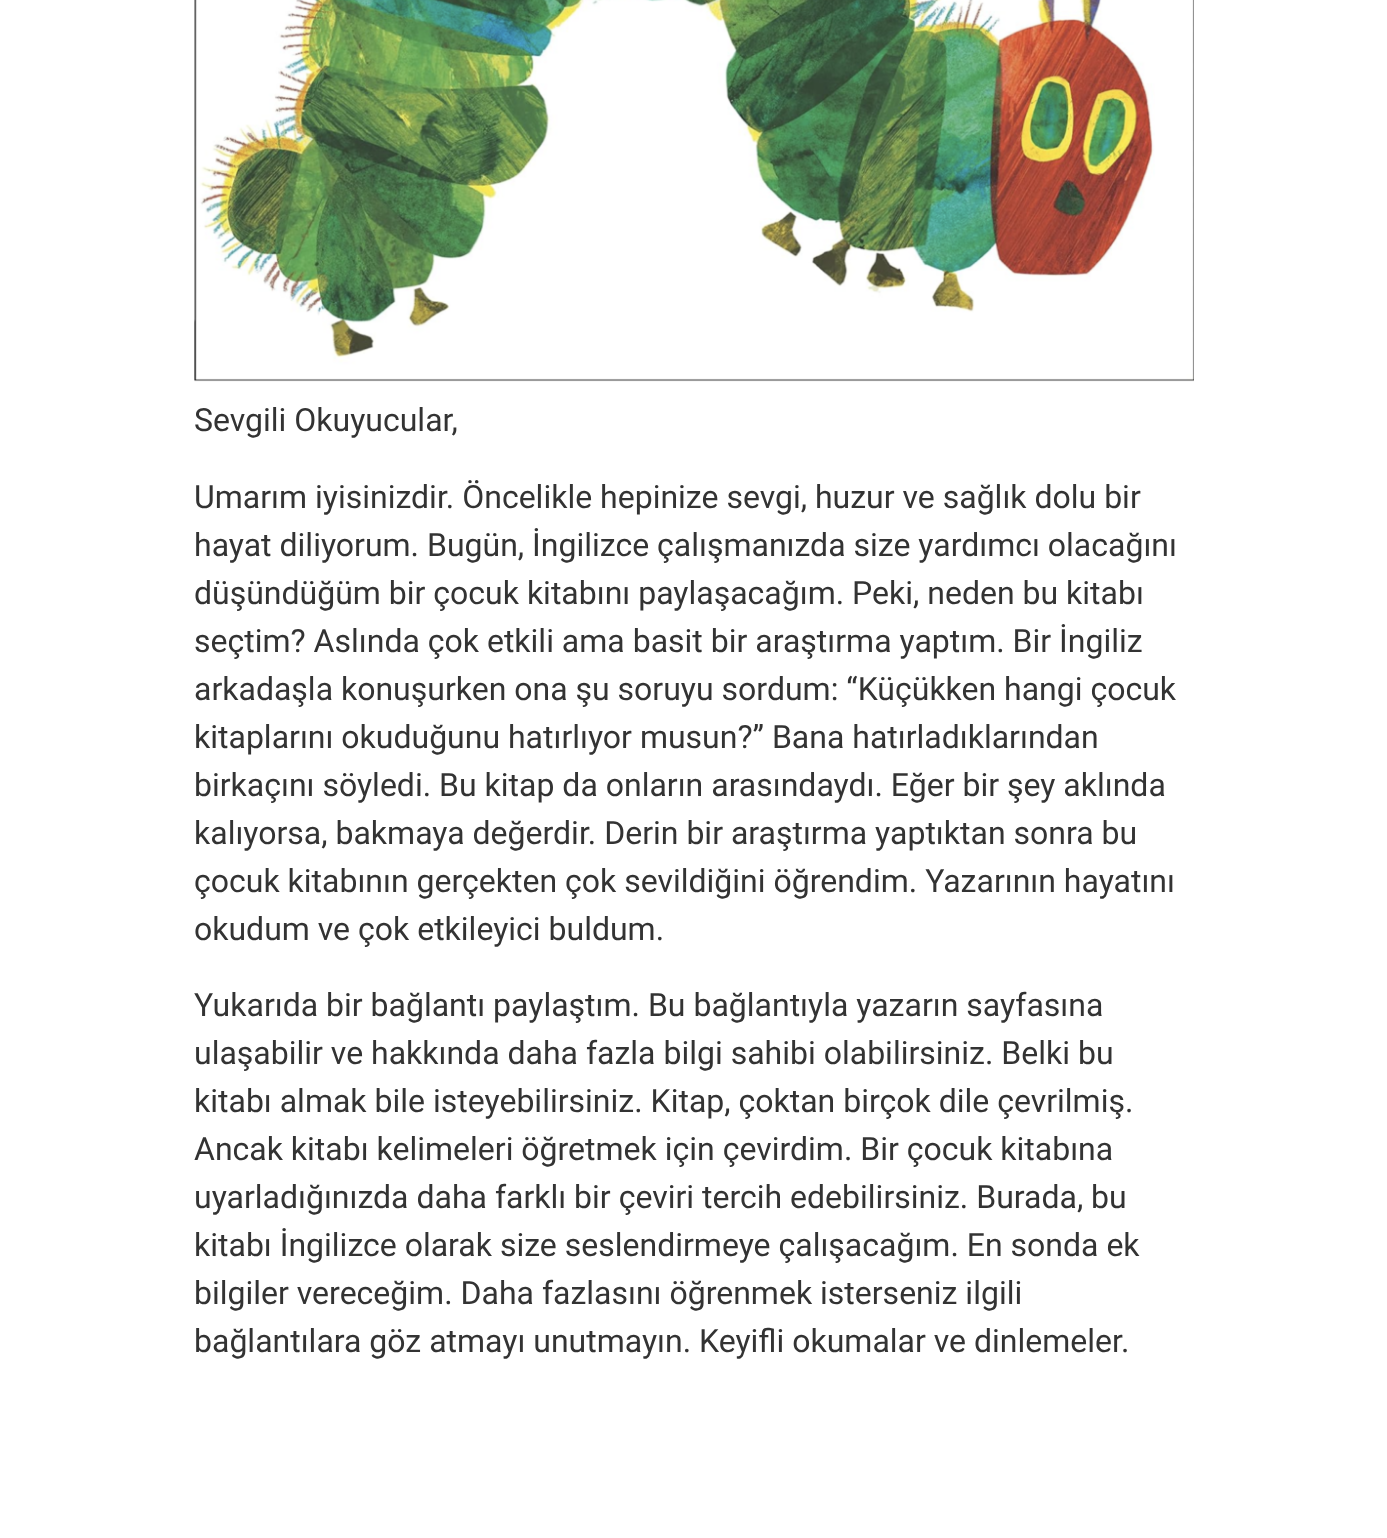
<?xml version="1.0" encoding="UTF-8"?>
<svg xmlns="http://www.w3.org/2000/svg" xmlns:xlink="http://www.w3.org/1999/xlink" width="1387" height="1538">
  <rect width="100%" height="100%" fill="#ffffff" />
  <image x="194" y="0" width="1000" height="382" xlink:href="image1.png" />
  <text x="194" y="431" style="font-family: Roboto; font-size: 32px; fill: #333333">Sevgili Okuyucular,</text>
  <text x="194" y="508" style="font-family: Roboto; font-size: 32px; fill: #333333">Umarım iyisinizdir. Öncelikle hepinize sevgi, huzur ve sağlık dolu bir</text>
  <text x="194" y="556" style="font-family: Roboto; font-size: 32px; fill: #333333">hayat diliyorum. Bugün, İngilizce çalışmanızda size yardımcı olacağını</text>
  <text x="194" y="604" style="font-family: Roboto; font-size: 32px; fill: #333333">düşündüğüm bir çocuk kitabını paylaşacağım. Peki, neden bu kitabı</text>
  <text x="194" y="652" style="font-family: Roboto; font-size: 32px; fill: #333333">seçtim? Aslında çok etkili ama basit bir araştırma yaptım. Bir İngiliz</text>
  <text x="194" y="700" style="font-family: Roboto; font-size: 32px; fill: #333333">arkadaşla konuşurken ona şu soruyu sordum: “Küçükken hangi çocuk</text>
  <text x="194" y="748" style="font-family: Roboto; font-size: 32px; fill: #333333">kitaplarını okuduğunu hatırlıyor musun?” Bana hatırladıklarından</text>
  <text x="194" y="796" style="font-family: Roboto; font-size: 32px; fill: #333333">birkaçını söyledi. Bu kitap da onların arasındaydı. Eğer bir şey aklında</text>
  <text x="194" y="844" style="font-family: Roboto; font-size: 32px; fill: #333333">kalıyorsa, bakmaya değerdir. Derin bir araştırma yaptıktan sonra bu</text>
  <text x="194" y="892" style="font-family: Roboto; font-size: 32px; fill: #333333">çocuk kitabının gerçekten çok sevildiğini öğrendim. Yazarının hayatını</text>
  <text x="194" y="940" style="font-family: Roboto; font-size: 32px; fill: #333333">okudum ve çok etkileyici buldum.</text>
  <text x="194" y="1016" style="font-family: Roboto; font-size: 32px; fill: #333333">Yukarıda bir bağlantı paylaştım. Bu bağlantıyla yazarın sayfasına</text>
  <text x="194" y="1064" style="font-family: Roboto; font-size: 32px; fill: #333333">ulaşabilir ve hakkında daha fazla bilgi sahibi olabilirsiniz. Belki bu</text>
  <text x="194" y="1112" style="font-family: Roboto; font-size: 32px; fill: #333333">kitabı almak bile isteyebilirsiniz. Kitap, çoktan birçok dile çevrilmiş.</text>
  <text x="194" y="1160" style="font-family: Roboto; font-size: 32px; fill: #333333">Ancak kitabı kelimeleri öğretmek için çevirdim. Bir çocuk kitabına</text>
  <text x="194" y="1208" style="font-family: Roboto; font-size: 32px; fill: #333333">uyarladığınızda daha farklı bir çeviri tercih edebilirsiniz. Burada, bu</text>
  <text x="194" y="1256" style="font-family: Roboto; font-size: 32px; fill: #333333">kitabı İngilizce olarak size seslendirmeye çalışacağım. En sonda ek</text>
  <text x="194" y="1304" style="font-family: Roboto; font-size: 32px; fill: #333333">bilgiler vereceğim. Daha fazlasını öğrenmek isterseniz ilgili</text>
  <text x="194" y="1352" style="font-family: Roboto; font-size: 32px; fill: #333333">bağlantılara göz atmayı unutmayın. Keyifli okumalar ve dinlemeler.</text>
</svg>
